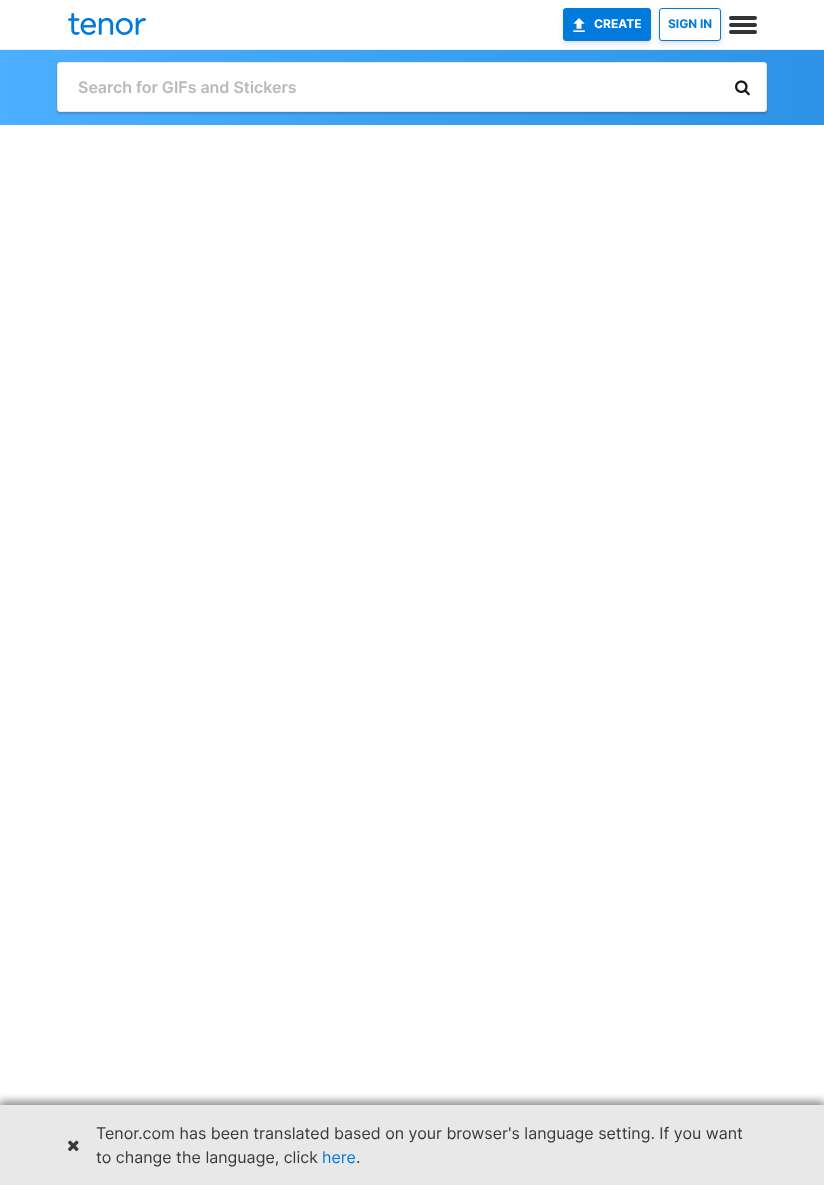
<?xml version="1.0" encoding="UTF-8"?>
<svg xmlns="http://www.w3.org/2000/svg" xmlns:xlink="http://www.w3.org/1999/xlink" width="824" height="1185">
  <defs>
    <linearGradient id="g1" gradientUnits="userSpaceOnUse" x1="0" y1="88" x2="824" y2="87"><stop offset="0" stop-color="#4cafff" /><stop offset="1" stop-color="#2e93e6" /></linearGradient>
  </defs>
  <rect width="100%" height="100%" fill="#ffffff" />
  <rect y="49" width="824" height="1" fill="#ebf2f7" />
  <image x="68" y="13" width="78" height="22" xlink:href="image1.png" />
  <rect x="563" y="12" width="88" height="33" rx="3" fill="#53535c" fill-opacity="0.11" filter="blur(3px)" />
  <rect x="563" y="9" width="88" height="33" rx="3" fill="#000000" fill-opacity="0.08" filter="blur(1.5px)" />
  <rect x="563.5" y="8.5" width="87" height="32" rx="2.5" fill="#007add" stroke="#007add" />
  <image x="573" y="18" width="12" height="14" xlink:href="image2.png" />
  <rect x="659" y="12" width="62" height="33" rx="3" fill="#53535c" fill-opacity="0.11" filter="blur(3px)" />
  <rect x="659" y="9" width="62" height="33" rx="3" fill="#000000" fill-opacity="0.08" filter="blur(1.5px)" />
  <rect x="659.5" y="8.5" width="61" height="32" rx="2.5" fill="#ffffff" stroke="#007add" />
  <rect x="729" y="23" width="28" height="4" rx="2" fill="#333333" />
  <rect x="729" y="16" width="28" height="4" rx="2" fill="#333333" />
  <rect x="729" y="30" width="28" height="4" rx="2" fill="#333333" />
  <rect y="50" width="824" height="75" fill="url(#g1)" />
  <rect x="57" y="64" width="710" height="50" rx="3" fill="#000000" fill-opacity="0.16" filter="blur(1px)" />
  <rect x="57.5" y="62.5" width="709" height="49" rx="2.5" fill="#ffffff" stroke="#e8e8e8" />
  <image x="735" y="80" width="15" height="16" xlink:href="image3.png" />
  <rect y="1103" width="824" height="80" fill="#999999" filter="blur(5px)" />
  <rect y="1103" width="824" height="80" fill="#999999" filter="blur(5px)" />
  <rect y="1105" width="824" height="80" fill="#e8e8e8" />
  <image x="68" y="1140" width="11" height="12" xlink:href="image4.png" />
  <text x="594" y="28" style="font-family: Inter; font-size: 12px; font-weight: bold; fill: #ffffff">CREATE</text>
  <text x="668" y="28" style="font-family: Inter; font-size: 12px; font-weight: bold; fill: #007add">SIGN IN</text>
  <text x="78" y="93" style="font-family: Inter; font-size: 16px; font-weight: 600; fill: #b9b9b9">Search for GIFs and Stickers</text>
  <text x="96" y="1139" style="font-family: Inter; font-size: 16px; fill: #373a3c">Tenor.com has been translated based on your browser's language setting. If you want</text>
  <text x="96" y="1163" style="font-family: Inter; font-size: 16px; fill: #373a3c">to change the language, click</text>
  <text x="322" y="1163" style="font-family: Inter; font-size: 16px; fill: #007add">here</text>
  <text x="356" y="1163" style="font-family: Inter; font-size: 16px; fill: #373a3c">.</text>
</svg>
